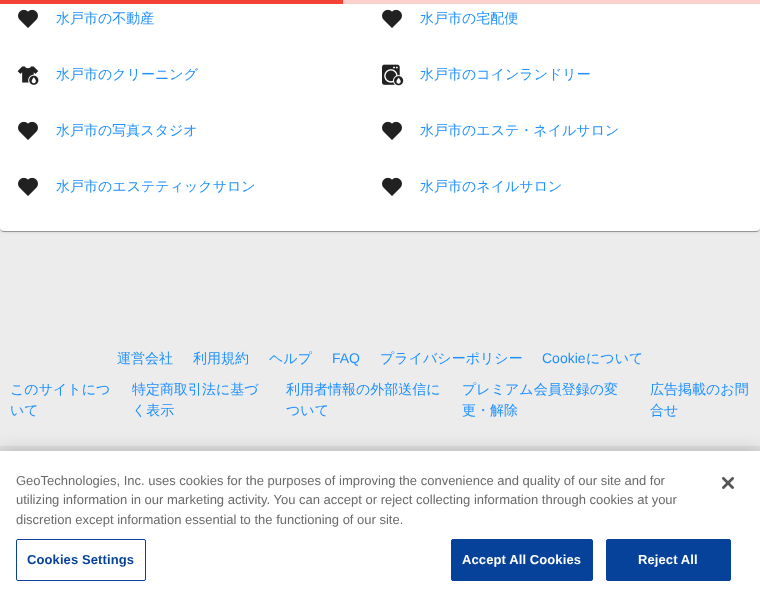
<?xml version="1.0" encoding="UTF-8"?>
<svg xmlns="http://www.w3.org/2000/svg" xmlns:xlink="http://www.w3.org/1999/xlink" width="760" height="595">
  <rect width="100%" height="100%" fill="#ececec" />
  <rect y="-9" width="760" height="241" rx="4" fill="#000000" fill-opacity="0.12" filter="blur(1.5px)" />
  <rect y="-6" width="760" height="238" rx="4" fill="#000000" fill-opacity="0.14" filter="blur(0.5px)" />
  <rect x="1" y="-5" width="758" height="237" rx="3" fill="#000000" fill-opacity="0.2" filter="blur(0.5px)" />
  <rect y="-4" width="760" height="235" rx="4" fill="#ffffff" />
  <rect width="343" height="4" fill="#f44336" />
  <rect x="343" width="417" height="4" fill="#fcd0cd" />
  <image x="18" y="9" width="20" height="19" xlink:href="image1.png" />
  <image x="382" y="9" width="20" height="19" xlink:href="image1.png" />
  <image x="17" y="66" width="22" height="19" xlink:href="image2.png" />
  <image x="382" y="64" width="22" height="22" xlink:href="image3.png" />
  <image x="18" y="121" width="20" height="19" xlink:href="image1.png" />
  <image x="382" y="121" width="20" height="19" xlink:href="image1.png" />
  <image x="18" y="177" width="20" height="19" xlink:href="image1.png" />
  <image x="382" y="177" width="20" height="19" xlink:href="image1.png" />
  <rect y="446" width="760" height="5" fill="#e0e0e0" />
  <rect y="451" width="760" height="144" fill="#000000" fill-opacity="0.2" filter="blur(9px)" />
  <rect y="451" width="760" height="144" fill="#ffffff" />
  <rect x="16.5" y="539.5" width="129" height="41" rx="1.5" fill="none" stroke="#06429a" />
  <rect x="451.5" y="539.5" width="141" height="41" rx="1.5" fill="#06429a" stroke="#06429a" />
  <rect x="606.5" y="539.5" width="124" height="41" rx="1.5" fill="#06429a" stroke="#06429a" />
  <image x="722" y="477" width="12" height="12" xlink:href="image4.png" />
  <text x="56" y="23" style="font-family: WenQuanYi Zen Hei; font-size: 14px; font-weight: 500; fill: #1e90ff">水戸市の不動産</text>
  <text x="420" y="23" style="font-family: WenQuanYi Zen Hei; font-size: 14px; font-weight: 500; fill: #1e90ff">水戸市の宅配便</text>
  <text x="56" y="79" style="font-family: WenQuanYi Zen Hei; font-size: 14px; font-weight: 500; fill: #1e90ff">水戸市のクリーニング</text>
  <text x="420" y="79" style="font-family: WenQuanYi Zen Hei; font-size: 14px; font-weight: 500; fill: #1e90ff">水戸市のコインランドリー</text>
  <text x="56" y="135" style="font-family: WenQuanYi Zen Hei; font-size: 14px; font-weight: 500; fill: #1e90ff">水戸市の写真スタジオ</text>
  <text x="420" y="135" style="font-family: WenQuanYi Zen Hei; font-size: 14px; font-weight: 500; fill: #1e90ff">水戸市のエステ・ネイルサロン</text>
  <text x="56" y="191" style="font-family: WenQuanYi Zen Hei; font-size: 14px; font-weight: 500; fill: #1e90ff">水戸市のエステティックサロン</text>
  <text x="420" y="191" style="font-family: WenQuanYi Zen Hei; font-size: 14px; font-weight: 500; fill: #1e90ff">水戸市のネイルサロン</text>
  <text x="117" y="363" style="font-family: WenQuanYi Zen Hei; font-size: 14px; font-weight: 500; fill: #1e90ff">運営会社</text>
  <text x="193" y="363" style="font-family: WenQuanYi Zen Hei; font-size: 14px; font-weight: 500; fill: #1e90ff">利用規約</text>
  <text x="269" y="363" style="font-family: WenQuanYi Zen Hei; font-size: 14px; font-weight: 500; fill: #1e90ff">ヘルプ</text>
  <text x="332" y="363" style="font-family: Liberation Sans; font-size: 14px; fill: #1e90ff">FAQ</text>
  <text x="380" y="363" style="font-family: WenQuanYi Zen Hei; font-size: 14px; font-weight: 500; fill: #1e90ff">プライバシーポリシー</text>
  <text x="542" y="363" style="font-family: Liberation Sans; font-size: 14px; fill: #1e90ff">Cookie</text>
  <text x="586" y="363" style="font-family: WenQuanYi Zen Hei; font-size: 14px; font-weight: 500; fill: #1e90ff">について</text>
  <text x="10" y="394" style="font-family: WenQuanYi Zen Hei; font-size: 14px; font-weight: 500; fill: #1e90ff">このサイトにつ</text>
  <text x="10" y="415" style="font-family: WenQuanYi Zen Hei; font-size: 14px; font-weight: 500; fill: #1e90ff">いて</text>
  <text x="132" y="394" style="font-family: WenQuanYi Zen Hei; font-size: 14px; font-weight: 500; fill: #1e90ff">特定商取引法に基づ</text>
  <text x="132" y="415" style="font-family: WenQuanYi Zen Hei; font-size: 14px; font-weight: 500; fill: #1e90ff">く表示</text>
  <text x="286" y="394" style="font-family: WenQuanYi Zen Hei; font-size: 14px; font-weight: 500; fill: #1e90ff">利用者情報の外部送信に</text>
  <text x="286" y="415" style="font-family: WenQuanYi Zen Hei; font-size: 14px; font-weight: 500; fill: #1e90ff">ついて</text>
  <text x="462" y="394" style="font-family: WenQuanYi Zen Hei; font-size: 14px; font-weight: 500; fill: #1e90ff">プレミアム会員登録の変</text>
  <text x="462" y="415" style="font-family: WenQuanYi Zen Hei; font-size: 14px; font-weight: 500; fill: #1e90ff">更・解除</text>
  <text x="650" y="394" style="font-family: WenQuanYi Zen Hei; font-size: 14px; font-weight: 500; fill: #1e90ff">広告掲載のお問</text>
  <text x="650" y="415" style="font-family: WenQuanYi Zen Hei; font-size: 14px; font-weight: 500; fill: #1e90ff">合せ</text>
  <text x="16" y="485" style="font-family: Liberation Sans; font-size: 13px; fill: #696969">GeoTechnologies, Inc. uses cookies for the purposes of improving the convenience and quality of our site and for</text>
  <text x="16" y="504" style="font-family: Liberation Sans; font-size: 13px; fill: #696969">utilizing information in our marketing activity. You can accept or reject collecting information through cookies at your</text>
  <text x="16" y="524" style="font-family: Liberation Sans; font-size: 13px; fill: #696969">discretion except information essential to the functioning of our site.</text>
  <text x="27" y="564" style="font-family: Liberation Sans; font-size: 13px; font-weight: bold; letter-spacing: 0.1px; fill: #06429a">Cookies Settings</text>
  <text x="462" y="564" style="font-family: Liberation Sans; font-size: 13px; font-weight: bold; letter-spacing: 0.1px; fill: #ffffff">Accept All Cookies</text>
  <text x="638" y="564" style="font-family: Liberation Sans; font-size: 13px; font-weight: bold; letter-spacing: 0.1px; fill: #ffffff">Reject All</text>
</svg>
